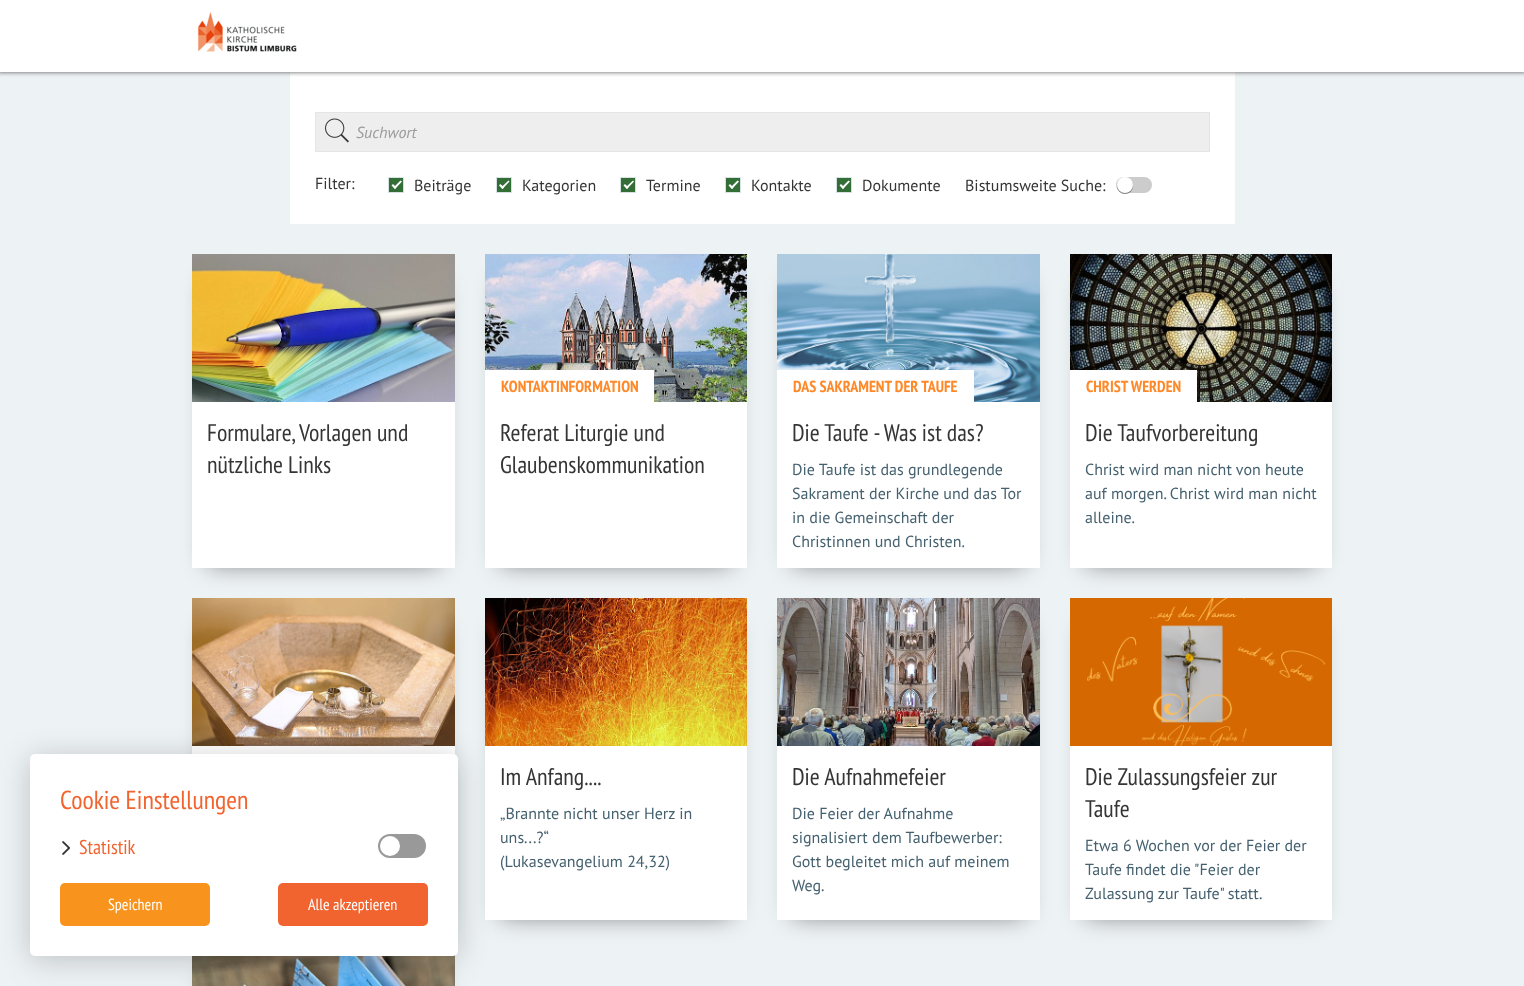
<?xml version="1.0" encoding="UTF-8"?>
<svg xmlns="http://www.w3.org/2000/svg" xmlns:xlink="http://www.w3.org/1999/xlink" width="1524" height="986">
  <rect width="100%" height="100%" fill="#edf2f4" />
  <rect x="290" y="72" width="945" height="152" fill="#ffffff" />
  <rect x="-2" y="-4" width="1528" height="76" fill="#555555" filter="blur(2.5px)" />
  <rect width="1524" height="72" fill="#ffffff" />
  <image x="197" y="12" width="100" height="40" xlink:href="image1.png" />
  <rect x="315.5" y="112.5" width="894" height="39" fill="#eeeeee" stroke="#e5e5e5" />
  <image x="325" y="118" width="24" height="25" xlink:href="image2.png" />
  <rect x="388.5" y="177.5" width="15" height="15" fill="#326e35" stroke="#d6e1e4" />
  <path d="M 400.5 180.5 l 1.5 1 l -7 7.5 l -1.5 -1.5 z" fill="#ffffff" />
  <path d="M 393 184 l 3.5 3.5 l -1.5 1.5 l -3.5 -3.5 z" fill="#ffffff" />
  <rect x="496.5" y="177.5" width="15" height="15" fill="#326e35" stroke="#d6e1e4" />
  <path d="M 508.5 180.5 l 1 1 l -7 7.5 l -1.5 -1.5 z" fill="#ffffff" />
  <path d="M 500.5 184 l 3.5 3.5 l -1.5 1.5 l -3.5 -3.5 z" fill="#ffffff" />
  <rect x="620.5" y="177.5" width="15" height="15" fill="#326e35" stroke="#d6e1e4" />
  <path d="M 633 180.5 l 1 1 l -7 7.5 l -1.5 -1.5 z" fill="#ffffff" />
  <path d="M 625 184 l 3.5 3.5 l -1.5 1.5 l -3.5 -3.5 z" fill="#ffffff" />
  <rect x="725.5" y="177.5" width="15" height="15" fill="#326e35" stroke="#d6e1e4" />
  <path d="M 737.5 180.5 l 1.5 1 l -7 7.5 l -1.5 -1.5 z" fill="#ffffff" />
  <path d="M 730 184 l 3.5 3.5 l -1.5 1.5 l -3.5 -3.5 z" fill="#ffffff" />
  <rect x="836.5" y="177.5" width="15" height="15" fill="#326e35" stroke="#d6e1e4" />
  <path d="M 848.5 180.5 l 1.5 1 l -7 7.5 l -1.5 -1.5 z" fill="#ffffff" />
  <path d="M 841 184 l 3.5 3.5 l -1.5 1.5 l -3.5 -3.5 z" fill="#ffffff" />
  <rect x="1116" y="177" width="36" height="16" rx="8" fill="#cccccc" />
  <rect x="1117" y="178" width="16" height="16" rx="8" fill="#000000" fill-opacity="0.5" filter="blur(0.5px)" />
  <circle cx="1125" cy="185" r="8" fill="#ffffff" />
  <rect x="208" y="282" width="231" height="282" fill="#000000" fill-opacity="0.5" filter="blur(12.5px)" />
  <rect x="192" y="402" width="263" height="166" fill="#ffffff" />
  <image x="192" y="254" width="263" height="148" xlink:href="image3.png" />
  <rect x="501" y="282" width="230" height="282" fill="#000000" fill-opacity="0.5" filter="blur(12.5px)" />
  <rect x="485" y="402" width="262" height="166" fill="#ffffff" />
  <image x="485" y="254" width="262" height="148" xlink:href="image4.png" />
  <rect x="485" y="370" width="169" height="32" fill="#ffffff" />
  <rect x="793" y="282" width="231" height="282" fill="#000000" fill-opacity="0.5" filter="blur(12.5px)" />
  <rect x="777" y="402" width="263" height="166" fill="#ffffff" />
  <image x="777" y="254" width="263" height="148" xlink:href="image5.png" />
  <rect x="777" y="370" width="197" height="32" fill="#ffffff" />
  <rect x="1086" y="282" width="230" height="282" fill="#000000" fill-opacity="0.5" filter="blur(12.5px)" />
  <rect x="1070" y="402" width="262" height="166" fill="#ffffff" />
  <image x="1070" y="254" width="262" height="148" xlink:href="image6.png" />
  <rect x="1070" y="370" width="127" height="32" fill="#ffffff" />
  <rect x="208" y="626" width="231" height="290" fill="#000000" fill-opacity="0.5" filter="blur(12.5px)" />
  <rect x="192" y="746" width="263" height="9" fill="#ffffff" />
  <image x="192" y="598" width="263" height="148" xlink:href="image7.png" />
  <rect x="501" y="626" width="230" height="290" fill="#000000" fill-opacity="0.5" filter="blur(12.5px)" />
  <rect x="485" y="746" width="262" height="174" fill="#ffffff" />
  <image x="485" y="598" width="262" height="148" xlink:href="image8.png" />
  <rect x="793" y="626" width="231" height="290" fill="#000000" fill-opacity="0.5" filter="blur(12.5px)" />
  <rect x="777" y="746" width="263" height="174" fill="#ffffff" />
  <image x="777" y="598" width="263" height="148" xlink:href="image9.png" />
  <rect x="1086" y="626" width="230" height="290" fill="#000000" fill-opacity="0.5" filter="blur(12.5px)" />
  <rect x="1070" y="746" width="262" height="174" fill="#ffffff" />
  <image x="1070" y="598" width="262" height="148" xlink:href="image10.png" />
  <rect x="208" y="978" width="231" height="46" fill="#000000" fill-opacity="0.5" filter="blur(12.5px)" />
  <image x="192" y="955" width="263" height="31" xlink:href="image11.png" />
  <rect x="30" y="758" width="428" height="202" rx="5" fill="#000000" fill-opacity="0.2" filter="blur(15px)" />
  <rect x="30" y="754" width="428" height="202" rx="5" fill="#ffffff" />
  <image x="62" y="841" width="9" height="14" xlink:href="image12.png" />
  <rect x="378" y="834" width="48" height="24" rx="12" fill="#999999" />
  <circle cx="390" cy="846" r="10" fill="#ffffff" />
  <rect x="60" y="883" width="150" height="43" rx="5" fill="#f8941d" />
  <rect x="278" y="883" width="150" height="43" rx="5" fill="#f2642f" />
  <text x="356" y="138" style="font-family: PT Sans; font-size: 16px; font-style: italic; fill: #9b9b9b">Suchwort</text>
  <text x="315" y="189" style="font-family: PT Sans; font-size: 16px; fill: #353535">Filter:</text>
  <text x="414" y="191" style="font-family: PT Sans; font-size: 16px; fill: #353535">Beiträge</text>
  <text x="522" y="191" style="font-family: PT Sans; font-size: 16px; fill: #353535">Kategorien</text>
  <text x="646" y="191" style="font-family: PT Sans; font-size: 16px; fill: #353535">Termine</text>
  <text x="751" y="191" style="font-family: PT Sans; font-size: 16px; fill: #353535">Kontakte</text>
  <text x="862" y="191" style="font-family: PT Sans; font-size: 16px; fill: #353535">Dokumente</text>
  <text x="965" y="191" style="font-family: PT Sans; font-size: 16px; fill: #353535">Bistumsweite Suche:</text>
  <text x="207" y="441" style="font-family: PT Sans Narrow; font-size: 24px; fill: #353535">Formulare, Vorlagen und</text>
  <text x="207" y="473" style="font-family: PT Sans Narrow; font-size: 24px; fill: #353535">nützliche Links</text>
  <text x="501" y="392" style="font-family: PT Sans Narrow; font-size: 16px; font-weight: bold; fill: #ff8929">KONTAKTINFORMATION</text>
  <text x="500" y="441" style="font-family: PT Sans Narrow; font-size: 24px; fill: #353535">Referat Liturgie und</text>
  <text x="500" y="473" style="font-family: PT Sans Narrow; font-size: 24px; fill: #353535">Glaubenskommunikation</text>
  <text x="793" y="392" style="font-family: PT Sans Narrow; font-size: 16px; font-weight: bold; fill: #ff8929">DAS SAKRAMENT DER TAUFE</text>
  <text x="792" y="441" style="font-family: PT Sans Narrow; font-size: 24px; fill: #353535">Die Taufe - Was ist das?</text>
  <text x="792" y="475" style="font-family: PT Sans; font-size: 16px; fill: #45616f">Die Taufe ist das grundlegende</text>
  <text x="792" y="499" style="font-family: PT Sans; font-size: 16px; fill: #45616f">Sakrament der Kirche und das Tor</text>
  <text x="792" y="523" style="font-family: PT Sans; font-size: 16px; fill: #45616f">in die Gemeinschaft der</text>
  <text x="792" y="547" style="font-family: PT Sans; font-size: 16px; fill: #45616f">Christinnen und Christen.</text>
  <text x="1086" y="392" style="font-family: PT Sans Narrow; font-size: 16px; font-weight: bold; fill: #ff8929">CHRIST WERDEN</text>
  <text x="1085" y="441" style="font-family: PT Sans Narrow; font-size: 24px; fill: #353535">Die Taufvorbereitung</text>
  <text x="1085" y="475" style="font-family: PT Sans; font-size: 16px; fill: #45616f">Christ wird man nicht von heute</text>
  <text x="1085" y="499" style="font-family: PT Sans; font-size: 16px; fill: #45616f">auf morgen. Christ wird man nicht</text>
  <text x="1085" y="523" style="font-family: PT Sans; font-size: 16px; fill: #45616f">alleine.</text>
  <text x="500" y="785" style="font-family: PT Sans Narrow; font-size: 24px; fill: #353535">Im Anfang....</text>
  <text x="500" y="819" style="font-family: PT Sans; font-size: 16px; fill: #45616f">„Brannte nicht unser Herz in</text>
  <text x="500" y="843" style="font-family: PT Sans; font-size: 16px; fill: #45616f">uns...?“</text>
  <text x="500" y="867" style="font-family: PT Sans; font-size: 16px; fill: #45616f">(Lukasevangelium 24,32)</text>
  <text x="792" y="785" style="font-family: PT Sans Narrow; font-size: 24px; fill: #353535">Die Aufnahmefeier</text>
  <text x="792" y="819" style="font-family: PT Sans; font-size: 16px; fill: #45616f">Die Feier der Aufnahme</text>
  <text x="792" y="843" style="font-family: PT Sans; font-size: 16px; fill: #45616f">signalisiert dem Taufbewerber:</text>
  <text x="792" y="867" style="font-family: PT Sans; font-size: 16px; fill: #45616f">Gott begleitet mich auf meinem</text>
  <text x="792" y="891" style="font-family: PT Sans; font-size: 16px; fill: #45616f">Weg.</text>
  <text x="1085" y="785" style="font-family: PT Sans Narrow; font-size: 24px; fill: #353535">Die Zulassungsfeier zur</text>
  <text x="1085" y="817" style="font-family: PT Sans Narrow; font-size: 24px; fill: #353535">Taufe</text>
  <text x="1085" y="851" style="font-family: PT Sans; font-size: 16px; fill: #45616f">Etwa 6 Wochen vor der Feier der</text>
  <text x="1085" y="875" style="font-family: PT Sans; font-size: 16px; fill: #45616f">Taufe findet die "Feier der</text>
  <text x="1085" y="899" style="font-family: PT Sans; font-size: 16px; fill: #45616f">Zulassung zur Taufe" statt.</text>
  <text x="60" y="809" style="font-family: PT Sans Narrow; font-size: 26px; fill: #f2642f">Cookie Einstellungen</text>
  <text x="79" y="854" style="font-family: PT Sans Narrow; font-size: 20px; fill: #f2642f">Statistik</text>
  <text x="108" y="910" style="font-family: PT Sans Narrow; font-size: 16px; fill: #ffffff">Speichern</text>
  <text x="308" y="910" style="font-family: PT Sans Narrow; font-size: 16px; fill: #ffffff">Alle akzeptieren</text>
</svg>
